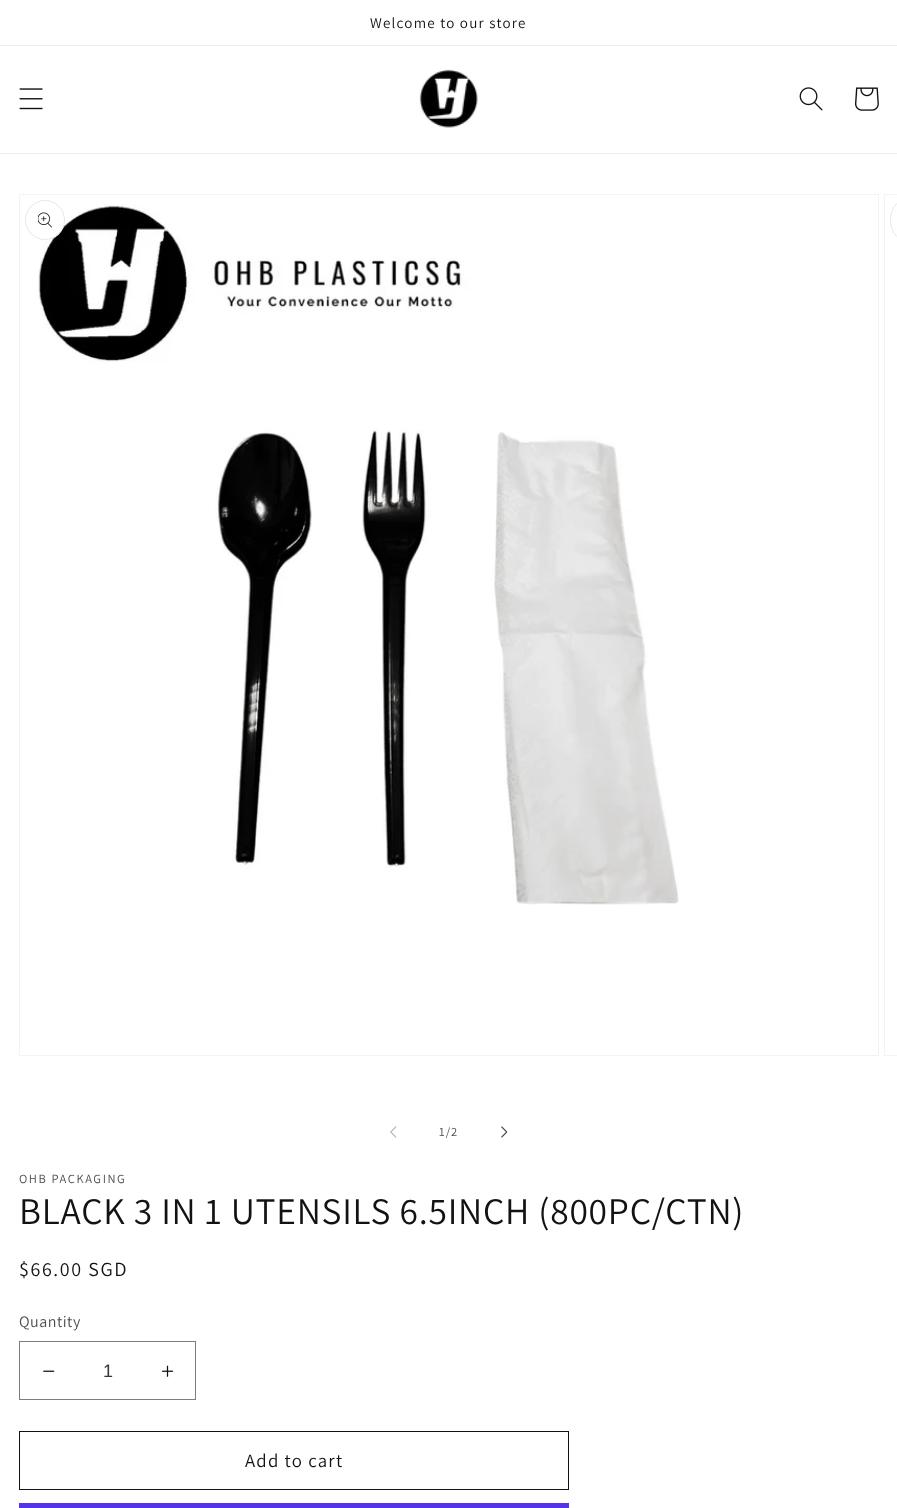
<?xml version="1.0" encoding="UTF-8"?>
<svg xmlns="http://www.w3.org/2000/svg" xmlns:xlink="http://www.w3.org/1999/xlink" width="897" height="1508">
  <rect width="100%" height="100%" fill="#ffffff" />
  <rect y="45" width="897" height="1" fill="#ececec" />
  <rect y="153" width="897" height="1" fill="#ececec" />
  <image x="19" y="88" width="24" height="22" xlink:href="image1.png" />
  <image x="419" y="69" width="59" height="59" xlink:href="image2.png" />
  <image x="799" y="87" width="24" height="24" xlink:href="image3.png" />
  <image x="855" y="87" width="24" height="24" xlink:href="image4.png" />
  <rect x="19.5" y="194.5" width="859" height="861" fill="none" stroke="#f3f3f3" />
  <image x="38" y="204" width="641" height="701" xlink:href="image5.png" />
  <circle cx="45" cy="220" r="20" fill="#ffffff" />
  <circle cx="45" cy="220" r="19.5" fill="none" stroke="#121212" stroke-opacity="0.1" />
  <image x="38" y="212" width="14" height="16" xlink:href="image6.png" />
  <rect x="884.5" y="194.5" width="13" height="861" fill="none" stroke="#f3f3f3" />
  <rect x="890.5" y="200.5" width="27" height="39" rx="19.5" fill="none" stroke="#e7e7e7" />
  <image x="390" y="1126" width="7" height="12" xlink:href="image7.png" />
  <image x="501" y="1126" width="7" height="12" xlink:href="image8.png" />
  <image x="43" y="1370" width="12" height="2" xlink:href="image9.png" />
  <image x="161" y="1365" width="13" height="12" xlink:href="image10.png" />
  <rect x="19.5" y="1341.5" width="176" height="58" fill="none" stroke="#7d7d7d" />
  <rect x="19.5" y="1431.5" width="549" height="58" fill="none" stroke="#121212" />
  <rect x="19" y="1503" width="550" height="5" fill="#5433eb" />
  <text x="370" y="28" style="font-family: Assistant; font-size: 15px; letter-spacing: 1.25px; fill: #121212">Welcome to our store</text>
  <text x="439" y="1136" style="font-family: Assistant; font-size: 12.5px; letter-spacing: 1px; fill: #4d4d4d">1/2</text>
  <text x="19" y="1183" style="font-family: Assistant; font-size: 12.5px; letter-spacing: 1.6px; fill: #4d4d4d">OHB PACKAGING</text>
  <text x="19" y="1224" style="font-family: Assistant; font-size: 37.5px; letter-spacing: 0.75px; fill: #121212">BLACK 3 IN 1 UTENSILS 6.5INCH (800PC/CTN)</text>
  <text x="19" y="1276" style="font-family: Assistant; font-size: 20px; letter-spacing: 1.6px; fill: #121212">$66.00 SGD</text>
  <text x="19" y="1327" style="font-family: Assistant; font-size: 16px; letter-spacing: 0.5px; fill: #4d4d4d">Quantity</text>
  <text x="103" y="1377" style="font-family: Liberation Sans; font-size: 18px; fill: #363636">1</text>
  <text x="245" y="1467" style="font-family: Assistant; font-size: 18.75px; letter-spacing: 1.25px; fill: #121212">Add to cart</text>
</svg>
